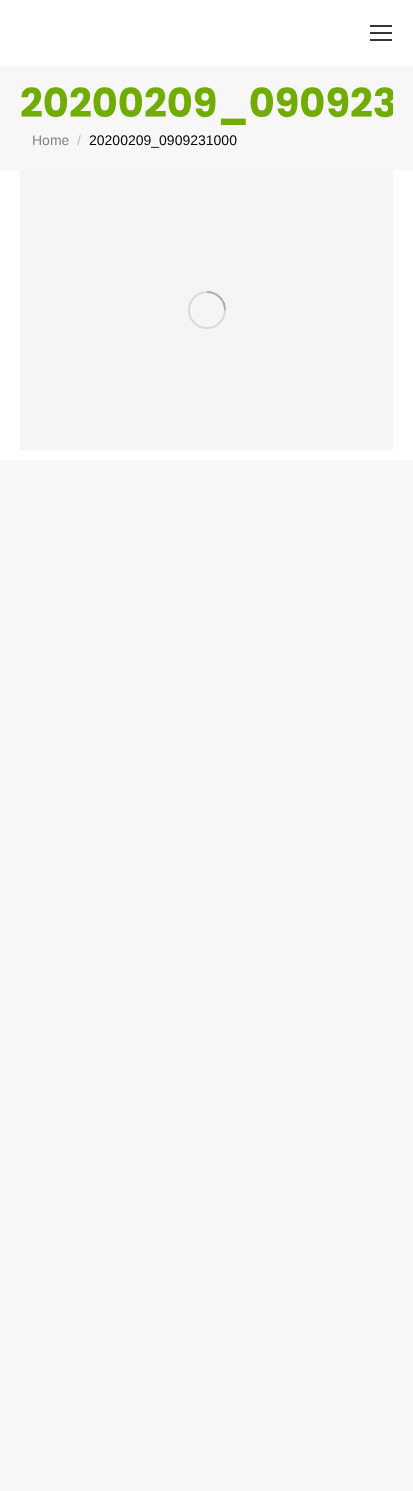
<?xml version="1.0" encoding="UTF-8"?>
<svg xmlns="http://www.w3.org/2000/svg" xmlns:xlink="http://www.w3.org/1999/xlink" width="413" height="1491">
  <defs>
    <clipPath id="clip1"><rect x="20" y="81" width="373" height="44" /></clipPath>
  </defs>
  <rect width="100%" height="100%" fill="#f8f8f9" />
  <rect width="413" height="460" fill="#ffffff" />
  <rect x="370" y="25" width="22" height="2" fill="#333539" />
  <rect x="370" y="32" width="22" height="2" fill="#333539" />
  <rect x="370" y="39" width="22" height="2" fill="#333539" />
  <rect y="66" width="413" height="104" fill="#f7f7f7" />
  <rect x="20" y="170" width="373" height="280" fill="#f5f5f5" />
  <circle cx="207" cy="310" r="18" fill="none" stroke="#dadada" stroke-width="2" />
  <path d="M 225 310 c 0 -10 -8 -18 -18 -18" fill="none" stroke="#2d2d2d" stroke-opacity="0.25" stroke-width="2" />
  <g clip-path="url(#clip1)">
    <text x="20" y="117" style="font-family: Poppins; font-size: 40px; font-weight: bold; fill: #70ac01">20200209_090923</text>
  </g>
  <text x="32" y="145" style="font-family: Liberation Sans; font-size: 14px; fill: #848484">Home</text>
  <text x="77" y="145" style="font-family: Liberation Sans; font-size: 14px; fill: #bebebe">/</text>
  <text x="89" y="145" style="font-family: Liberation Sans; font-size: 14px; fill: #000000">20200209_0909231000</text>
</svg>
